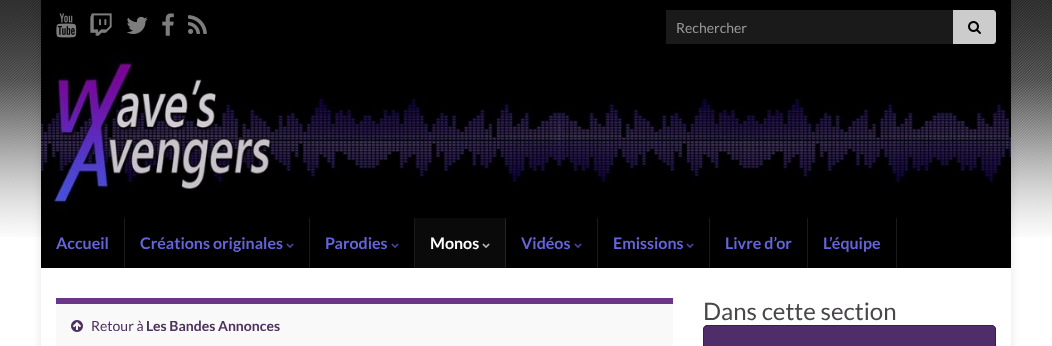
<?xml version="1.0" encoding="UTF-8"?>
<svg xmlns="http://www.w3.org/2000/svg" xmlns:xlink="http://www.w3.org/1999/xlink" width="1052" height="346">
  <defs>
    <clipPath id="clip1"><path d="M 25 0 h 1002 v 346 h -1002 z m 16 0 h 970 v 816 h -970 z" clip-rule="evenodd" /></clipPath>
  </defs>
  <rect width="100%" height="100%" fill="#ffffff" />
  <image x="0" y="0" width="1052" height="237" xlink:href="image1.png" />
  <g clip-path="url(#clip1)">
    <rect x="41" width="970" height="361" fill="#000000" fill-opacity="0.1" filter="blur(5px)" />
  </g>
  <rect x="41" width="970" height="54" fill="#000000" />
  <image x="56" y="13" width="21" height="25" xlink:href="image2.png" />
  <image x="90" y="13" width="22" height="23" xlink:href="image3.png" />
  <image x="127" y="16" width="21" height="18" xlink:href="image4.png" />
  <image x="162" y="13" width="12" height="23" xlink:href="image5.png" />
  <image x="188" y="15" width="19" height="19" xlink:href="image6.png" />
  <rect x="666" y="10" width="287" height="34" fill="#1a1a1a" />
  <path d="M 953 10 h 40 c 1.5 0 3 1.5 3 3 v 28 c 0 1.5 -1.5 3 -3 3 h -40 z" fill="#cccccc" />
  <image x="968" y="21" width="13" height="13" xlink:href="image7.png" />
  <image x="41" y="54" width="970" height="164" xlink:href="image8.png" />
  <rect x="41" y="218" width="970" height="50" fill="#000000" />
  <rect x="124" y="218" width="1" height="50" fill="#1a1a1a" />
  <rect x="309" y="218" width="1" height="50" fill="#1a1a1a" />
  <image x="286" y="243" width="8" height="5" xlink:href="image9.png" />
  <rect x="414" y="218" width="1" height="50" fill="#1a1a1a" />
  <image x="391" y="243" width="8" height="5" xlink:href="image9.png" />
  <rect x="415" y="218" width="90" height="50" fill="#0b0a0b" />
  <rect x="505" y="218" width="1" height="50" fill="#232323" />
  <image x="482" y="243" width="8" height="5" xlink:href="image10.png" />
  <rect x="597" y="218" width="1" height="50" fill="#1a1a1a" />
  <image x="574" y="243" width="8" height="5" xlink:href="image9.png" />
  <rect x="709" y="218" width="1" height="50" fill="#1a1a1a" />
  <image x="686" y="243" width="8" height="5" xlink:href="image9.png" />
  <rect x="807" y="218" width="1" height="50" fill="#1a1a1a" />
  <rect x="896" y="218" width="1" height="50" fill="#1a1a1a" />
  <path d="M 707 325.5 h 285 c 2 0 3.5 1.5 3.5 3.5 v 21.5 h -292 v -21.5 c 0 -2 1.5 -3.5 3.5 -3.5 z" fill="#4f2d69" stroke="#3c1c54" />
  <rect x="56" y="304" width="617" height="42" fill="#f9f9f9" />
  <rect x="56" y="298" width="617" height="6" fill="#6b3589" />
  <image x="71" y="320" width="12" height="12" xlink:href="image11.png" />
  <text x="676" y="33" style="font-family: Lato; font-size: 14px; fill: #999999">Rechercher</text>
  <text x="56" y="249" style="font-family: Lato; font-size: 16px; font-weight: bold; fill: #6464dc">Accueil</text>
  <text x="140" y="249" style="font-family: Lato; font-size: 16px; font-weight: bold; fill: #6464dc">Créations originales</text>
  <text x="325" y="249" style="font-family: Lato; font-size: 16px; font-weight: bold; fill: #6464dc">Parodies</text>
  <text x="430" y="249" style="font-family: Lato; font-size: 16px; font-weight: bold; fill: #ffffff">Monos</text>
  <text x="521" y="249" style="font-family: Lato; font-size: 16px; font-weight: bold; fill: #6464dc">Vidéos</text>
  <text x="613" y="249" style="font-family: Lato; font-size: 16px; font-weight: bold; fill: #6464dc">Emissions</text>
  <text x="725" y="249" style="font-family: Lato; font-size: 16px; font-weight: bold; fill: #6464dc">Livre d’or</text>
  <text x="823" y="249" style="font-family: Lato; font-size: 16px; font-weight: bold; fill: #6464dc">L’équipe</text>
  <text x="703" y="320" style="font-family: Lato; font-size: 24px; fill: #4a474b">Dans cette section</text>
  <text x="91" y="331" style="font-family: Lato; font-size: 14px; fill: #4e305e">Retour à</text>
  <text x="146" y="331" style="font-family: Lato; font-size: 14px; font-weight: bold; fill: #4e305e">Les Bandes Annonces</text>
</svg>
